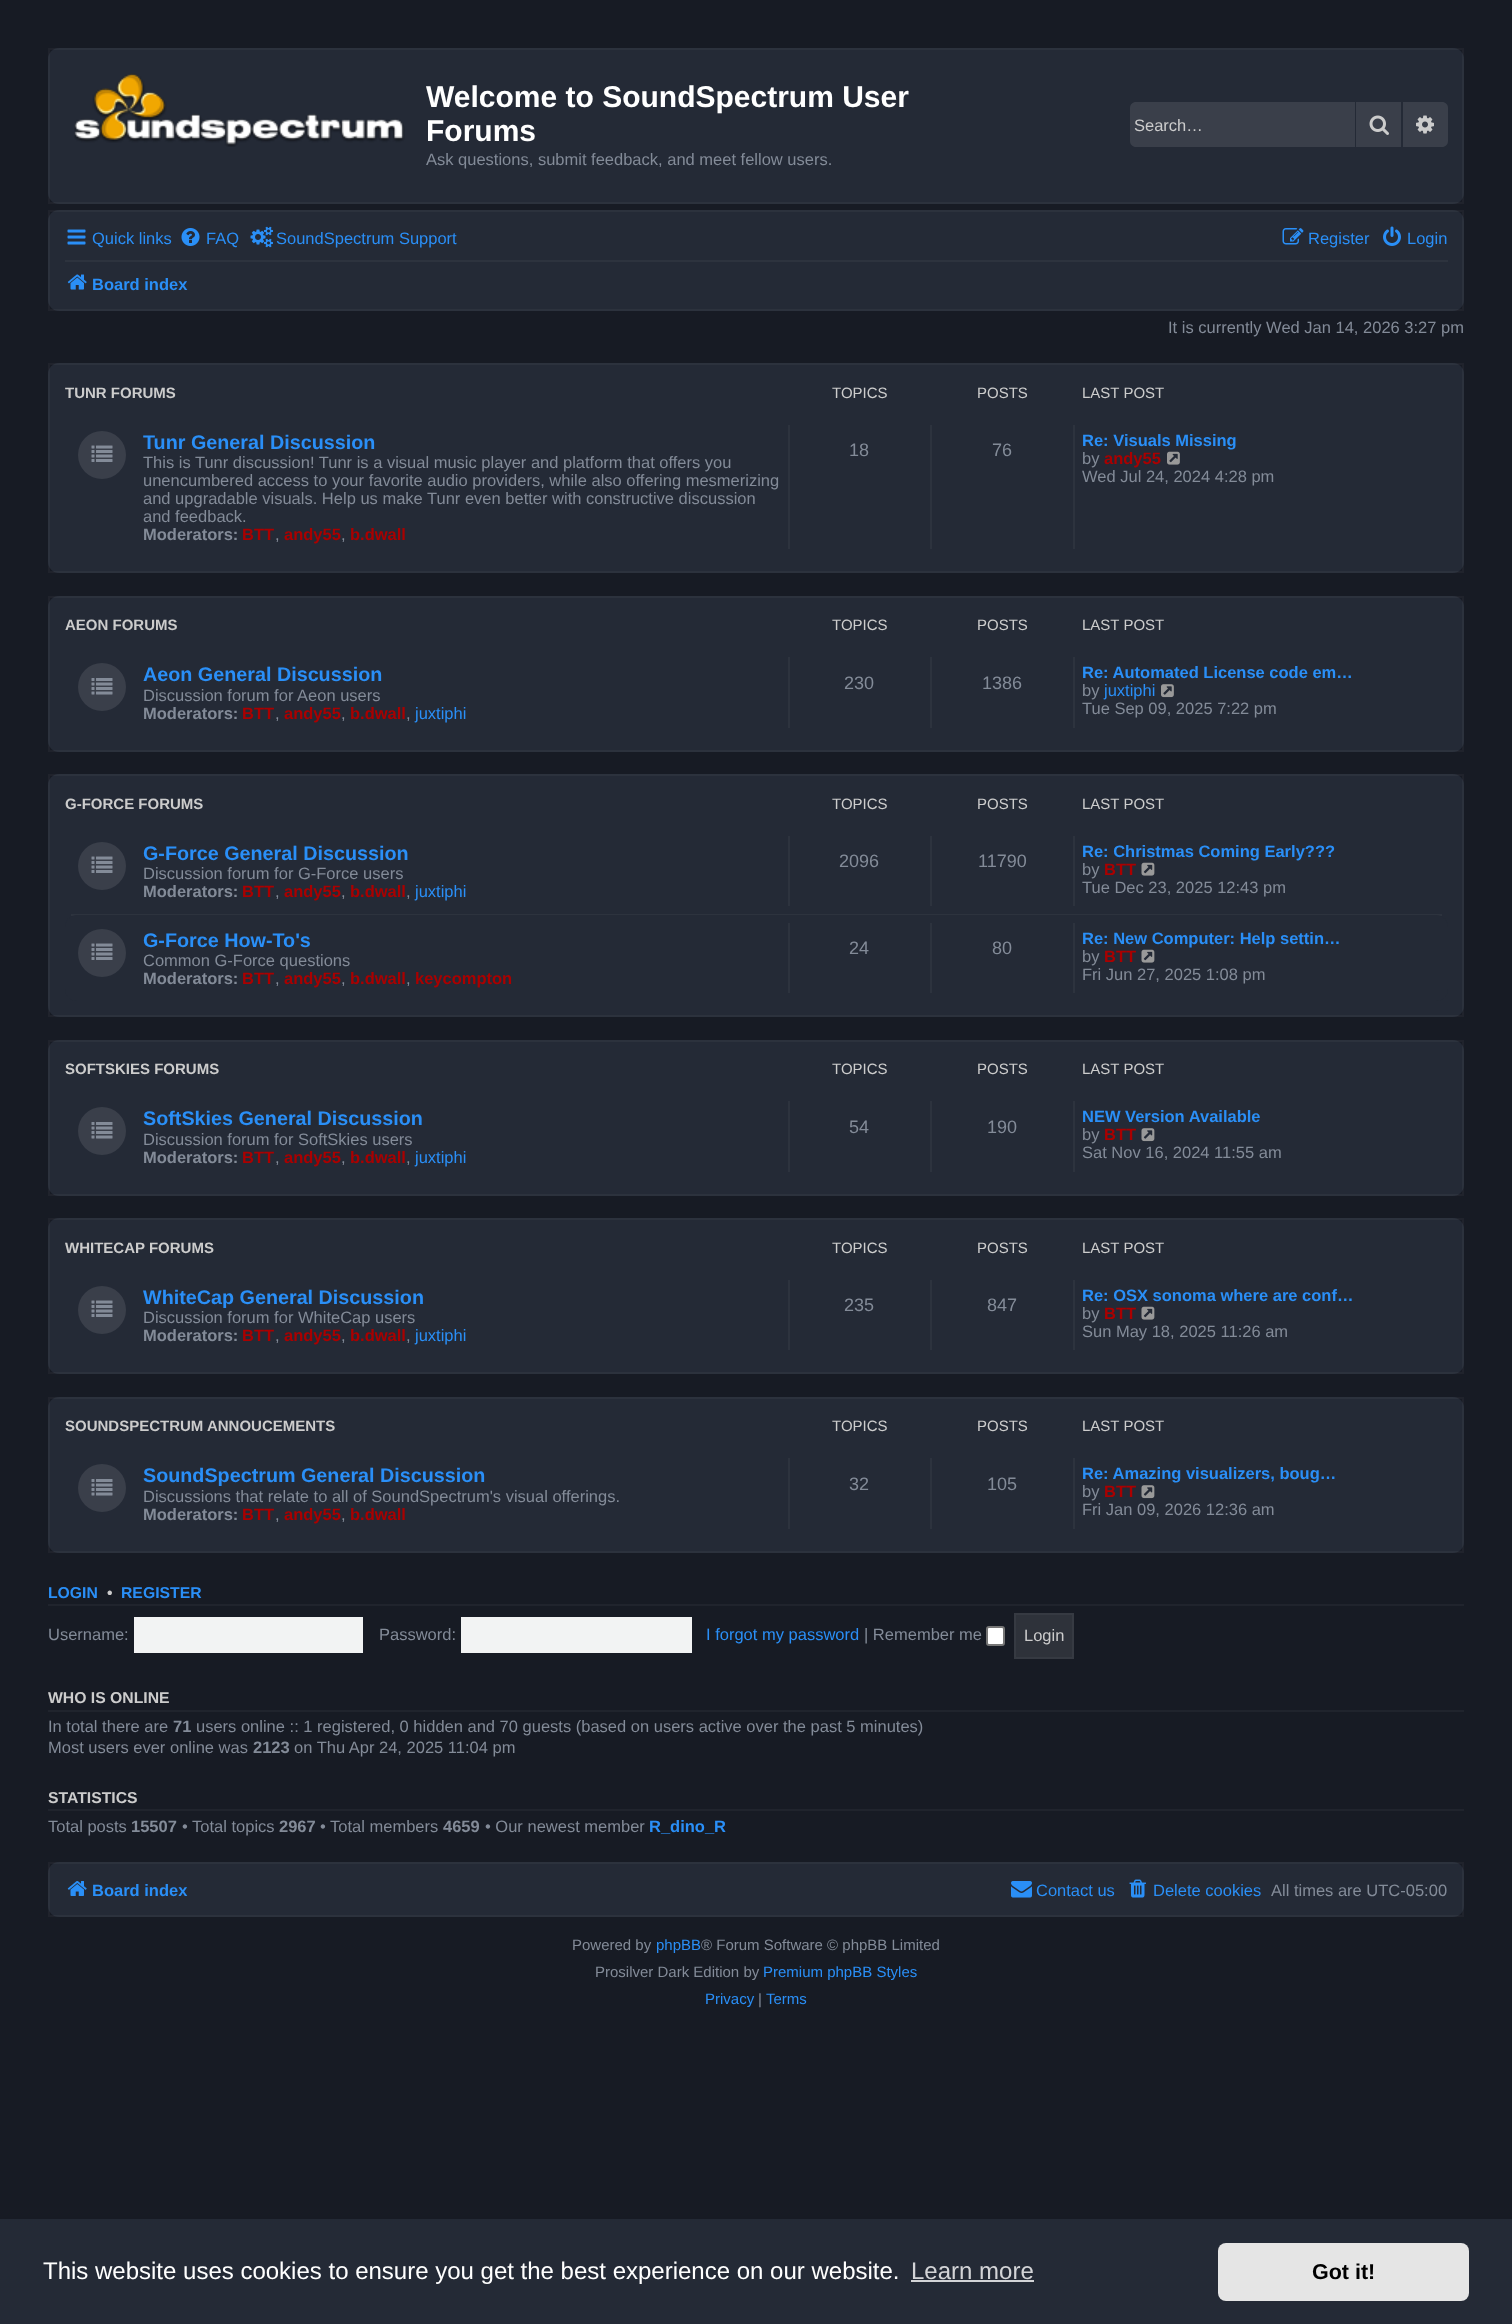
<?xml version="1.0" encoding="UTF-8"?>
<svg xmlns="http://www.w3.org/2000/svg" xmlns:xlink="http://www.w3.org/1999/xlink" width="1512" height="2324">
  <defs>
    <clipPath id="clip1"><rect x="65" y="380" width="1383" height="37" /></clipPath>
  </defs>
  <rect width="100%" height="100%" fill="#171b24" />
  <rect x="48" y="48" width="1416" height="156" rx="11" fill="#242a36" />
  <rect x="49" y="49" width="1414" height="154" fill="none" stroke="#ffffff" stroke-opacity="0.04" stroke-width="2" />
  <image x="74" y="73" width="331" height="74" xlink:href="image1.png" />
  <path d="M 1136 102 h 219 v 45 h -219 c -3.5 0 -6 -2.5 -6 -6 v -33 c 0 -3.5 2.5 -6 6 -6 z" fill="#3a3f4a" />
  <rect x="1356" y="102" width="45" height="45" fill="#3a3f4a" />
  <image x="1369" y="115" width="20" height="20" xlink:href="image2.png" />
  <path d="M 1403 102 h 39 c 3.5 0 6 2.5 6 6 v 33 c 0 3.5 -2.5 6 -6 6 h -39 z" fill="#3a3f4a" />
  <image x="1416" y="115" width="18" height="19" xlink:href="image3.png" />
  <rect x="48" y="210" width="1416" height="101" rx="11" fill="#242a36" />
  <rect x="49" y="211" width="1414" height="99" fill="none" stroke="#ffffff" stroke-opacity="0.04" stroke-width="2" />
  <image x="67" y="229" width="19" height="16" xlink:href="image4.png" />
  <image x="181" y="228" width="19" height="18" xlink:href="image5.png" />
  <image x="250" y="226" width="23" height="22" xlink:href="image6.png" />
  <image x="1282" y="228" width="22" height="17" xlink:href="image7.png" />
  <image x="1383" y="226" width="18" height="20" xlink:href="image8.png" />
  <rect x="65" y="260" width="1383" height="2" fill="#2d333e" />
  <image x="67" y="274" width="20" height="16" xlink:href="image9.png" />
  <rect x="48" y="363" width="1416" height="210" rx="11" fill="#242a36" />
  <rect x="49" y="364" width="1414" height="208" fill="none" stroke="#ffffff" stroke-opacity="0.04" stroke-width="2" />
  <circle cx="102" cy="455" r="24" fill="#3a3f4a" />
  <image x="91" y="445" width="22" height="17" xlink:href="image10.png" />
  <rect x="788" y="425" width="2" height="124" fill="#2d333e" />
  <rect x="930" y="425" width="2" height="124" fill="#2d333e" />
  <rect x="1073" y="425" width="2" height="124" fill="#2d333e" />
  <image x="1167" y="451" width="13" height="14" xlink:href="image11.png" />
  <rect x="48" y="596" width="1416" height="156" rx="11" fill="#242a36" />
  <rect x="49" y="597" width="1414" height="154" fill="none" stroke="#ffffff" stroke-opacity="0.04" stroke-width="2" />
  <circle cx="102" cy="687" r="24" fill="#3a3f4a" />
  <image x="91" y="678" width="22" height="17" xlink:href="image12.png" />
  <rect x="788" y="657" width="2" height="71" fill="#2d333e" />
  <rect x="930" y="657" width="2" height="71" fill="#2d333e" />
  <rect x="1073" y="657" width="2" height="71" fill="#2d333e" />
  <image x="1161" y="684" width="13" height="14" xlink:href="image13.png" />
  <rect x="48" y="774" width="1416" height="243" rx="11" fill="#242a36" />
  <rect x="49" y="775" width="1414" height="241" fill="none" stroke="#ffffff" stroke-opacity="0.04" stroke-width="2" />
  <rect x="71" y="914" width="1371" height="2" fill="#2d333e" />
  <circle cx="102" cy="866" r="24" fill="#3a3f4a" />
  <image x="91" y="856" width="22" height="17" xlink:href="image10.png" />
  <rect x="788" y="836" width="2" height="70" fill="#2d333e" />
  <rect x="930" y="836" width="2" height="70" fill="#2d333e" />
  <rect x="1073" y="836" width="2" height="70" fill="#2d333e" />
  <image x="1141" y="862" width="14" height="14" xlink:href="image14.png" />
  <rect x="65" y="915" width="1383" height="86" rx="12" fill="#242a36" />
  <circle cx="102" cy="953" r="24" fill="#3a3f4a" />
  <image x="91" y="943" width="22" height="17" xlink:href="image10.png" />
  <rect x="788" y="923" width="2" height="70" fill="#2d333e" />
  <rect x="930" y="923" width="2" height="70" fill="#2d333e" />
  <rect x="1073" y="923" width="2" height="70" fill="#2d333e" />
  <image x="1141" y="949" width="14" height="14" xlink:href="image14.png" />
  <rect x="48" y="1040" width="1416" height="156" rx="11" fill="#242a36" />
  <rect x="49" y="1041" width="1414" height="154" fill="none" stroke="#ffffff" stroke-opacity="0.04" stroke-width="2" />
  <circle cx="102" cy="1131" r="24" fill="#3a3f4a" />
  <image x="91" y="1122" width="22" height="17" xlink:href="image12.png" />
  <rect x="788" y="1101" width="2" height="71" fill="#2d333e" />
  <rect x="930" y="1101" width="2" height="71" fill="#2d333e" />
  <rect x="1073" y="1101" width="2" height="71" fill="#2d333e" />
  <image x="1141" y="1128" width="14" height="14" xlink:href="image15.png" />
  <rect x="48" y="1218" width="1416" height="156" rx="11" fill="#242a36" />
  <rect x="49" y="1219" width="1414" height="154" fill="none" stroke="#ffffff" stroke-opacity="0.04" stroke-width="2" />
  <circle cx="102" cy="1310" r="24" fill="#3a3f4a" />
  <image x="91" y="1300" width="22" height="17" xlink:href="image10.png" />
  <rect x="788" y="1280" width="2" height="70" fill="#2d333e" />
  <rect x="930" y="1280" width="2" height="70" fill="#2d333e" />
  <rect x="1073" y="1280" width="2" height="70" fill="#2d333e" />
  <image x="1141" y="1306" width="14" height="14" xlink:href="image14.png" />
  <rect x="48" y="1397" width="1416" height="156" rx="11" fill="#242a36" />
  <rect x="49" y="1398" width="1414" height="154" fill="none" stroke="#ffffff" stroke-opacity="0.04" stroke-width="2" />
  <circle cx="102" cy="1488" r="24" fill="#3a3f4a" />
  <image x="91" y="1479" width="22" height="17" xlink:href="image12.png" />
  <rect x="788" y="1458" width="2" height="71" fill="#2d333e" />
  <rect x="930" y="1458" width="2" height="71" fill="#2d333e" />
  <rect x="1073" y="1458" width="2" height="71" fill="#2d333e" />
  <image x="1141" y="1485" width="14" height="14" xlink:href="image15.png" />
  <rect x="48" y="1604" width="1416" height="2" fill="#20242d" />
  <rect x="134" y="1617" width="229" height="36" fill="#f2f3f3" />
  <rect x="461" y="1617" width="231" height="36" fill="#f2f3f3" />
  <rect x="987" y="1627" width="17" height="18" rx="2" fill="#ffffff" stroke="#767676" stroke-width="2" />
  <rect x="1015" y="1614" width="58" height="44" fill="#2e323a" stroke="#363a42" stroke-width="2" />
  <rect x="48" y="1710" width="1416" height="2" fill="#20242d" />
  <rect x="48" y="1809" width="1416" height="2" fill="#20242d" />
  <rect x="48" y="1862" width="1416" height="55" rx="11" fill="#242a36" />
  <rect x="49" y="1863" width="1414" height="53" fill="none" stroke="#ffffff" stroke-opacity="0.04" stroke-width="2" />
  <image x="67" y="1881" width="20" height="15" xlink:href="image16.png" />
  <image x="1011" y="1881" width="21" height="17" xlink:href="image17.png" />
  <image x="1129" y="1879" width="17" height="19" xlink:href="image18.png" />
  <rect y="2219" width="1512" height="105" fill="#242a36" />
  <rect x="911" y="2280" width="123" height="2" fill="#d3d4d7" />
  <rect x="1218" y="2243" width="251" height="58" rx="8" fill="#e5e5e5" />
  <text x="426" y="107" style="font-family: Liberation Sans; font-size: 30px; font-weight: bold; fill: #ffffff">Welcome to SoundSpectrum User</text>
  <text x="426" y="141" style="font-family: Liberation Sans; font-size: 30px; font-weight: bold; fill: #ffffff">Forums</text>
  <text x="426" y="165" style="font-family: Liberation Sans; font-size: 16.5px; fill: #838b98">Ask questions, submit feedback, and meet fellow users.</text>
  <text x="1134" y="131" style="font-family: Liberation Sans; font-size: 16.5px; fill: #cccccc">Search…</text>
  <text x="92" y="244" style="font-family: Liberation Sans; font-size: 16.5px; fill: #2a8ff7">Quick links</text>
  <text x="206" y="244" style="font-family: Liberation Sans; font-size: 16.5px; fill: #2a8ff7">FAQ</text>
  <text x="276" y="244" style="font-family: Liberation Sans; font-size: 16.5px; fill: #2a8ff7">SoundSpectrum Support</text>
  <text x="1308" y="244" style="font-family: Liberation Sans; font-size: 16.5px; fill: #2a8ff7">Register</text>
  <text x="1407" y="244" style="font-family: Liberation Sans; font-size: 16.5px; fill: #2a8ff7">Login</text>
  <text x="92" y="290" style="font-family: Liberation Sans; font-size: 16.5px; font-weight: bold; fill: #2a8ff7">Board index</text>
  <text x="1168" y="333" style="font-family: Liberation Sans; font-size: 16.5px; fill: #838b98">It is currently Wed Jan 14, 2026 3:27 pm</text>
  <g clip-path="url(#clip1)">
    <text x="65" y="398" style="font-family: Liberation Sans; font-size: 15px; font-weight: bold; fill: #cccccc">TUNR FORUMS</text>
  </g>
  <text x="832" y="398" style="font-family: Liberation Sans; font-size: 15px; fill: #cccccc">TOPICS</text>
  <text x="977" y="398" style="font-family: Liberation Sans; font-size: 15px; fill: #cccccc">POSTS</text>
  <text x="1082" y="398" style="font-family: Liberation Sans; font-size: 15px; fill: #cccccc">LAST POST</text>
  <text x="143" y="449" style="font-family: Liberation Sans; font-size: 19.75px; font-weight: bold; fill: #2a8ff7">Tunr General Discussion</text>
  <text x="143" y="468" style="font-family: Liberation Sans; font-size: 16.5px; fill: #838b98">This is Tunr discussion! Tunr is a visual music player and platform that offers you</text>
  <text x="143" y="486" style="font-family: Liberation Sans; font-size: 16.5px; fill: #838b98">unencumbered access to your favorite audio providers, while also offering mesmerizing</text>
  <text x="143" y="504" style="font-family: Liberation Sans; font-size: 16.5px; fill: #838b98">and upgradable visuals. Help us make Tunr even better with constructive discussion</text>
  <text x="143" y="522" style="font-family: Liberation Sans; font-size: 16.5px; fill: #838b98">and feedback.</text>
  <text x="143" y="540" style="font-family: Liberation Sans; font-size: 16.5px; font-weight: bold; fill: #838b98">Moderators:</text>
  <text x="242" y="540" style="font-family: Liberation Sans; font-size: 16.5px; font-weight: bold; fill: #aa0000">BTT</text>
  <text x="275" y="540" style="font-family: Liberation Sans; font-size: 16.5px; fill: #838b98">,</text>
  <text x="284" y="540" style="font-family: Liberation Sans; font-size: 16.5px; font-weight: bold; fill: #aa0000">andy55</text>
  <text x="341" y="540" style="font-family: Liberation Sans; font-size: 16.5px; fill: #838b98">,</text>
  <text x="350" y="540" style="font-family: Liberation Sans; font-size: 16.5px; font-weight: bold; fill: #aa0000">b.dwall</text>
  <text x="849" y="456" style="font-family: Liberation Sans; font-size: 18px; fill: #838b98">18</text>
  <text x="992" y="456" style="font-family: Liberation Sans; font-size: 18px; fill: #838b98">76</text>
  <text x="1082" y="446" style="font-family: Liberation Sans; font-size: 16.5px; font-weight: bold; fill: #2a8ff7">Re: Visuals Missing</text>
  <text x="1082" y="464" style="font-family: Liberation Sans; font-size: 16.5px; fill: #838b98">by</text>
  <text x="1104" y="464" style="font-family: Liberation Sans; font-size: 16.5px; font-weight: bold; fill: #aa0000">andy55</text>
  <text x="1082" y="482" style="font-family: Liberation Sans; font-size: 16.5px; fill: #838b98">Wed Jul 24, 2024 4:28 pm</text>
  <text x="65" y="630" style="font-family: Liberation Sans; font-size: 15px; font-weight: bold; fill: #cccccc">AEON FORUMS</text>
  <text x="832" y="630" style="font-family: Liberation Sans; font-size: 15px; fill: #cccccc">TOPICS</text>
  <text x="977" y="630" style="font-family: Liberation Sans; font-size: 15px; fill: #cccccc">POSTS</text>
  <text x="1082" y="630" style="font-family: Liberation Sans; font-size: 15px; fill: #cccccc">LAST POST</text>
  <text x="143" y="681" style="font-family: Liberation Sans; font-size: 19.75px; font-weight: bold; fill: #2a8ff7">Aeon General Discussion</text>
  <text x="143" y="701" style="font-family: Liberation Sans; font-size: 16.5px; fill: #838b98">Discussion forum for Aeon users</text>
  <text x="143" y="719" style="font-family: Liberation Sans; font-size: 16.5px; font-weight: bold; fill: #838b98">Moderators:</text>
  <text x="242" y="719" style="font-family: Liberation Sans; font-size: 16.5px; font-weight: bold; fill: #aa0000">BTT</text>
  <text x="275" y="719" style="font-family: Liberation Sans; font-size: 16.5px; fill: #838b98">,</text>
  <text x="284" y="719" style="font-family: Liberation Sans; font-size: 16.5px; font-weight: bold; fill: #aa0000">andy55</text>
  <text x="341" y="719" style="font-family: Liberation Sans; font-size: 16.5px; fill: #838b98">,</text>
  <text x="350" y="719" style="font-family: Liberation Sans; font-size: 16.5px; font-weight: bold; fill: #aa0000">b.dwall</text>
  <text x="406" y="719" style="font-family: Liberation Sans; font-size: 16.5px; fill: #838b98">,</text>
  <text x="415" y="719" style="font-family: Liberation Sans; font-size: 16.5px; fill: #2a8ff7">juxtiphi</text>
  <text x="844" y="689" style="font-family: Liberation Sans; font-size: 18px; fill: #838b98">230</text>
  <text x="982" y="689" style="font-family: Liberation Sans; font-size: 18px; fill: #838b98">1386</text>
  <text x="1082" y="678" style="font-family: Liberation Sans; font-size: 16.5px; font-weight: bold; fill: #2a8ff7">Re: Automated License code em…</text>
  <text x="1082" y="696" style="font-family: Liberation Sans; font-size: 16.5px; fill: #838b98">by</text>
  <text x="1104" y="696" style="font-family: Liberation Sans; font-size: 16.5px; fill: #2a8ff7">juxtiphi</text>
  <text x="1082" y="714" style="font-family: Liberation Sans; font-size: 16.5px; fill: #838b98">Tue Sep 09, 2025 7:22 pm</text>
  <text x="65" y="809" style="font-family: Liberation Sans; font-size: 15px; font-weight: bold; fill: #cccccc">G-FORCE FORUMS</text>
  <text x="832" y="809" style="font-family: Liberation Sans; font-size: 15px; fill: #cccccc">TOPICS</text>
  <text x="977" y="809" style="font-family: Liberation Sans; font-size: 15px; fill: #cccccc">POSTS</text>
  <text x="1082" y="809" style="font-family: Liberation Sans; font-size: 15px; fill: #cccccc">LAST POST</text>
  <text x="143" y="860" style="font-family: Liberation Sans; font-size: 19.75px; font-weight: bold; fill: #2a8ff7">G-Force General Discussion</text>
  <text x="143" y="879" style="font-family: Liberation Sans; font-size: 16.5px; fill: #838b98">Discussion forum for G-Force users</text>
  <text x="143" y="897" style="font-family: Liberation Sans; font-size: 16.5px; font-weight: bold; fill: #838b98">Moderators:</text>
  <text x="242" y="897" style="font-family: Liberation Sans; font-size: 16.5px; font-weight: bold; fill: #aa0000">BTT</text>
  <text x="275" y="897" style="font-family: Liberation Sans; font-size: 16.5px; fill: #838b98">,</text>
  <text x="284" y="897" style="font-family: Liberation Sans; font-size: 16.5px; font-weight: bold; fill: #aa0000">andy55</text>
  <text x="341" y="897" style="font-family: Liberation Sans; font-size: 16.5px; fill: #838b98">,</text>
  <text x="350" y="897" style="font-family: Liberation Sans; font-size: 16.5px; font-weight: bold; fill: #aa0000">b.dwall</text>
  <text x="406" y="897" style="font-family: Liberation Sans; font-size: 16.5px; fill: #838b98">,</text>
  <text x="415" y="897" style="font-family: Liberation Sans; font-size: 16.5px; fill: #2a8ff7">juxtiphi</text>
  <text x="839" y="867" style="font-family: Liberation Sans; font-size: 18px; fill: #838b98">2096</text>
  <text x="978" y="867" style="font-family: Liberation Sans; font-size: 18px; fill: #838b98">11790</text>
  <text x="1082" y="857" style="font-family: Liberation Sans; font-size: 16.5px; font-weight: bold; fill: #2a8ff7">Re: Christmas Coming Early???</text>
  <text x="1082" y="875" style="font-family: Liberation Sans; font-size: 16.5px; fill: #838b98">by</text>
  <text x="1104" y="875" style="font-family: Liberation Sans; font-size: 16.5px; font-weight: bold; fill: #aa0000">BTT</text>
  <text x="1082" y="893" style="font-family: Liberation Sans; font-size: 16.5px; fill: #838b98">Tue Dec 23, 2025 12:43 pm</text>
  <text x="143" y="947" style="font-family: Liberation Sans; font-size: 19.75px; font-weight: bold; fill: #2a8ff7">G-Force How-To's</text>
  <text x="143" y="966" style="font-family: Liberation Sans; font-size: 16.5px; fill: #838b98">Common G-Force questions</text>
  <text x="143" y="984" style="font-family: Liberation Sans; font-size: 16.5px; font-weight: bold; fill: #838b98">Moderators:</text>
  <text x="242" y="984" style="font-family: Liberation Sans; font-size: 16.5px; font-weight: bold; fill: #aa0000">BTT</text>
  <text x="275" y="984" style="font-family: Liberation Sans; font-size: 16.5px; fill: #838b98">,</text>
  <text x="284" y="984" style="font-family: Liberation Sans; font-size: 16.5px; font-weight: bold; fill: #aa0000">andy55</text>
  <text x="341" y="984" style="font-family: Liberation Sans; font-size: 16.5px; fill: #838b98">,</text>
  <text x="350" y="984" style="font-family: Liberation Sans; font-size: 16.5px; font-weight: bold; fill: #aa0000">b.dwall</text>
  <text x="406" y="984" style="font-family: Liberation Sans; font-size: 16.5px; fill: #838b98">,</text>
  <text x="415" y="984" style="font-family: Liberation Sans; font-size: 16.5px; font-weight: bold; fill: #aa0000">keycompton</text>
  <text x="849" y="954" style="font-family: Liberation Sans; font-size: 18px; fill: #838b98">24</text>
  <text x="992" y="954" style="font-family: Liberation Sans; font-size: 18px; fill: #838b98">80</text>
  <text x="1082" y="944" style="font-family: Liberation Sans; font-size: 16.5px; font-weight: bold; fill: #2a8ff7">Re: New Computer: Help settin…</text>
  <text x="1082" y="962" style="font-family: Liberation Sans; font-size: 16.5px; fill: #838b98">by</text>
  <text x="1104" y="962" style="font-family: Liberation Sans; font-size: 16.5px; font-weight: bold; fill: #aa0000">BTT</text>
  <text x="1082" y="980" style="font-family: Liberation Sans; font-size: 16.5px; fill: #838b98">Fri Jun 27, 2025 1:08 pm</text>
  <text x="65" y="1074" style="font-family: Liberation Sans; font-size: 15px; font-weight: bold; fill: #cccccc">SOFTSKIES FORUMS</text>
  <text x="832" y="1074" style="font-family: Liberation Sans; font-size: 15px; fill: #cccccc">TOPICS</text>
  <text x="977" y="1074" style="font-family: Liberation Sans; font-size: 15px; fill: #cccccc">POSTS</text>
  <text x="1082" y="1074" style="font-family: Liberation Sans; font-size: 15px; fill: #cccccc">LAST POST</text>
  <text x="143" y="1125" style="font-family: Liberation Sans; font-size: 19.75px; font-weight: bold; fill: #2a8ff7">SoftSkies General Discussion</text>
  <text x="143" y="1145" style="font-family: Liberation Sans; font-size: 16.5px; fill: #838b98">Discussion forum for SoftSkies users</text>
  <text x="143" y="1163" style="font-family: Liberation Sans; font-size: 16.5px; font-weight: bold; fill: #838b98">Moderators:</text>
  <text x="242" y="1163" style="font-family: Liberation Sans; font-size: 16.5px; font-weight: bold; fill: #aa0000">BTT</text>
  <text x="275" y="1163" style="font-family: Liberation Sans; font-size: 16.5px; fill: #838b98">,</text>
  <text x="284" y="1163" style="font-family: Liberation Sans; font-size: 16.5px; font-weight: bold; fill: #aa0000">andy55</text>
  <text x="341" y="1163" style="font-family: Liberation Sans; font-size: 16.5px; fill: #838b98">,</text>
  <text x="350" y="1163" style="font-family: Liberation Sans; font-size: 16.5px; font-weight: bold; fill: #aa0000">b.dwall</text>
  <text x="406" y="1163" style="font-family: Liberation Sans; font-size: 16.5px; fill: #838b98">,</text>
  <text x="415" y="1163" style="font-family: Liberation Sans; font-size: 16.5px; fill: #2a8ff7">juxtiphi</text>
  <text x="849" y="1133" style="font-family: Liberation Sans; font-size: 18px; fill: #838b98">54</text>
  <text x="987" y="1133" style="font-family: Liberation Sans; font-size: 18px; fill: #838b98">190</text>
  <text x="1082" y="1122" style="font-family: Liberation Sans; font-size: 16.5px; font-weight: bold; fill: #2a8ff7">NEW Version Available</text>
  <text x="1082" y="1140" style="font-family: Liberation Sans; font-size: 16.5px; fill: #838b98">by</text>
  <text x="1104" y="1140" style="font-family: Liberation Sans; font-size: 16.5px; font-weight: bold; fill: #aa0000">BTT</text>
  <text x="1082" y="1158" style="font-family: Liberation Sans; font-size: 16.5px; fill: #838b98">Sat Nov 16, 2024 11:55 am</text>
  <text x="65" y="1253" style="font-family: Liberation Sans; font-size: 15px; font-weight: bold; fill: #cccccc">WHITECAP FORUMS</text>
  <text x="832" y="1253" style="font-family: Liberation Sans; font-size: 15px; fill: #cccccc">TOPICS</text>
  <text x="977" y="1253" style="font-family: Liberation Sans; font-size: 15px; fill: #cccccc">POSTS</text>
  <text x="1082" y="1253" style="font-family: Liberation Sans; font-size: 15px; fill: #cccccc">LAST POST</text>
  <text x="143" y="1304" style="font-family: Liberation Sans; font-size: 19.75px; font-weight: bold; fill: #2a8ff7">WhiteCap General Discussion</text>
  <text x="143" y="1323" style="font-family: Liberation Sans; font-size: 16.5px; fill: #838b98">Discussion forum for WhiteCap users</text>
  <text x="143" y="1341" style="font-family: Liberation Sans; font-size: 16.5px; font-weight: bold; fill: #838b98">Moderators:</text>
  <text x="242" y="1341" style="font-family: Liberation Sans; font-size: 16.5px; font-weight: bold; fill: #aa0000">BTT</text>
  <text x="275" y="1341" style="font-family: Liberation Sans; font-size: 16.5px; fill: #838b98">,</text>
  <text x="284" y="1341" style="font-family: Liberation Sans; font-size: 16.5px; font-weight: bold; fill: #aa0000">andy55</text>
  <text x="341" y="1341" style="font-family: Liberation Sans; font-size: 16.5px; fill: #838b98">,</text>
  <text x="350" y="1341" style="font-family: Liberation Sans; font-size: 16.5px; font-weight: bold; fill: #aa0000">b.dwall</text>
  <text x="406" y="1341" style="font-family: Liberation Sans; font-size: 16.5px; fill: #838b98">,</text>
  <text x="415" y="1341" style="font-family: Liberation Sans; font-size: 16.5px; fill: #2a8ff7">juxtiphi</text>
  <text x="844" y="1311" style="font-family: Liberation Sans; font-size: 18px; fill: #838b98">235</text>
  <text x="987" y="1311" style="font-family: Liberation Sans; font-size: 18px; fill: #838b98">847</text>
  <text x="1082" y="1301" style="font-family: Liberation Sans; font-size: 16.5px; font-weight: bold; fill: #2a8ff7">Re: OSX sonoma where are conf…</text>
  <text x="1082" y="1319" style="font-family: Liberation Sans; font-size: 16.5px; fill: #838b98">by</text>
  <text x="1104" y="1319" style="font-family: Liberation Sans; font-size: 16.5px; font-weight: bold; fill: #aa0000">BTT</text>
  <text x="1082" y="1337" style="font-family: Liberation Sans; font-size: 16.5px; fill: #838b98">Sun May 18, 2025 11:26 am</text>
  <text x="65" y="1431" style="font-family: Liberation Sans; font-size: 15px; font-weight: bold; fill: #cccccc">SOUNDSPECTRUM ANNOUCEMENTS</text>
  <text x="832" y="1431" style="font-family: Liberation Sans; font-size: 15px; fill: #cccccc">TOPICS</text>
  <text x="977" y="1431" style="font-family: Liberation Sans; font-size: 15px; fill: #cccccc">POSTS</text>
  <text x="1082" y="1431" style="font-family: Liberation Sans; font-size: 15px; fill: #cccccc">LAST POST</text>
  <text x="143" y="1482" style="font-family: Liberation Sans; font-size: 19.75px; font-weight: bold; fill: #2a8ff7">SoundSpectrum General Discussion</text>
  <text x="143" y="1502" style="font-family: Liberation Sans; font-size: 16.5px; fill: #838b98">Discussions that relate to all of SoundSpectrum's visual offerings.</text>
  <text x="143" y="1520" style="font-family: Liberation Sans; font-size: 16.5px; font-weight: bold; fill: #838b98">Moderators:</text>
  <text x="242" y="1520" style="font-family: Liberation Sans; font-size: 16.5px; font-weight: bold; fill: #aa0000">BTT</text>
  <text x="275" y="1520" style="font-family: Liberation Sans; font-size: 16.5px; fill: #838b98">,</text>
  <text x="284" y="1520" style="font-family: Liberation Sans; font-size: 16.5px; font-weight: bold; fill: #aa0000">andy55</text>
  <text x="341" y="1520" style="font-family: Liberation Sans; font-size: 16.5px; fill: #838b98">,</text>
  <text x="350" y="1520" style="font-family: Liberation Sans; font-size: 16.5px; font-weight: bold; fill: #aa0000">b.dwall</text>
  <text x="849" y="1490" style="font-family: Liberation Sans; font-size: 18px; fill: #838b98">32</text>
  <text x="987" y="1490" style="font-family: Liberation Sans; font-size: 18px; fill: #838b98">105</text>
  <text x="1082" y="1479" style="font-family: Liberation Sans; font-size: 16.5px; font-weight: bold; fill: #2a8ff7">Re: Amazing visualizers, boug…</text>
  <text x="1082" y="1497" style="font-family: Liberation Sans; font-size: 16.5px; fill: #838b98">by</text>
  <text x="1104" y="1497" style="font-family: Liberation Sans; font-size: 16.5px; font-weight: bold; fill: #aa0000">BTT</text>
  <text x="1082" y="1515" style="font-family: Liberation Sans; font-size: 16.5px; fill: #838b98">Fri Jan 09, 2026 12:36 am</text>
  <text x="48" y="1598" style="font-family: Liberation Sans; font-size: 15.75px; font-weight: bold; fill: #2a8ff7">LOGIN</text>
  <text x="107" y="1598" style="font-family: Liberation Sans; font-size: 15.75px; font-weight: bold; fill: #cccccc">•</text>
  <text x="121" y="1598" style="font-family: Liberation Sans; font-size: 15.75px; font-weight: bold; fill: #2a8ff7">REGISTER</text>
  <text x="48" y="1640" style="font-family: Liberation Sans; font-size: 16.5px; fill: #838b98">Username:</text>
  <text x="379" y="1640" style="font-family: Liberation Sans; font-size: 16.5px; fill: #838b98">Password:</text>
  <text x="706" y="1640" style="font-family: Liberation Sans; font-size: 16.5px; fill: #2a8ff7">I forgot my password</text>
  <text x="864" y="1640" style="font-family: Liberation Sans; font-size: 16.5px; fill: #838b98">| Remember me</text>
  <text x="1024" y="1641" style="font-family: Liberation Sans; font-size: 16.5px; fill: #cccccc">Login</text>
  <text x="48" y="1703" style="font-family: Liberation Sans; font-size: 15.75px; font-weight: bold; fill: #cccccc">WHO IS ONLINE</text>
  <text x="48" y="1732" style="font-family: Liberation Sans; font-size: 16.5px; fill: #838b98">In total there are</text>
  <text x="173" y="1732" style="font-family: Liberation Sans; font-size: 16.5px; font-weight: bold; fill: #838b98">71</text>
  <text x="196" y="1732" style="font-family: Liberation Sans; font-size: 16.5px; fill: #838b98">users online :: 1 registered, 0 hidden and 70 guests (based on users active over the past 5 minutes)</text>
  <text x="48" y="1753" style="font-family: Liberation Sans; font-size: 16.5px; fill: #838b98">Most users ever online was</text>
  <text x="253" y="1753" style="font-family: Liberation Sans; font-size: 16.5px; font-weight: bold; fill: #838b98">2123</text>
  <text x="294" y="1753" style="font-family: Liberation Sans; font-size: 16.5px; fill: #838b98">on Thu Apr 24, 2025 11:04 pm</text>
  <text x="48" y="1803" style="font-family: Liberation Sans; font-size: 15.75px; font-weight: bold; fill: #cccccc">STATISTICS</text>
  <text x="48" y="1832" style="font-family: Liberation Sans; font-size: 16.5px; fill: #838b98">Total posts</text>
  <text x="131" y="1832" style="font-family: Liberation Sans; font-size: 16.5px; font-weight: bold; fill: #838b98">15507</text>
  <text x="182" y="1832" style="font-family: Liberation Sans; font-size: 16.5px; fill: #838b98">• Total topics</text>
  <text x="279" y="1832" style="font-family: Liberation Sans; font-size: 16.5px; font-weight: bold; fill: #838b98">2967</text>
  <text x="320" y="1832" style="font-family: Liberation Sans; font-size: 16.5px; fill: #838b98">• Total members</text>
  <text x="443" y="1832" style="font-family: Liberation Sans; font-size: 16.5px; font-weight: bold; fill: #838b98">4659</text>
  <text x="485" y="1832" style="font-family: Liberation Sans; font-size: 16.5px; fill: #838b98">• Our newest member</text>
  <text x="649" y="1832" style="font-family: Liberation Sans; font-size: 16.5px; font-weight: bold; fill: #2a8ff7">R_dino_R</text>
  <text x="92" y="1896" style="font-family: Liberation Sans; font-size: 16.5px; font-weight: bold; fill: #2a8ff7">Board index</text>
  <text x="1036" y="1896" style="font-family: Liberation Sans; font-size: 16.5px; fill: #2a8ff7">Contact us</text>
  <text x="1153" y="1896" style="font-family: Liberation Sans; font-size: 16.5px; fill: #2a8ff7">Delete cookies</text>
  <text x="1271" y="1896" style="font-family: Liberation Sans; font-size: 16.5px; fill: #838b98">All times are UTC-05:00</text>
  <text x="572" y="1950" style="font-family: Liberation Sans; font-size: 15px; fill: #838b98">Powered by</text>
  <text x="656" y="1950" style="font-family: Liberation Sans; font-size: 15px; fill: #2a8ff7">phpBB</text>
  <text x="701" y="1950" style="font-family: Liberation Sans; font-size: 15px; fill: #838b98">® Forum Software © phpBB Limited</text>
  <text x="595" y="1977" style="font-family: Liberation Sans; font-size: 15px; fill: #838b98">Prosilver Dark Edition by</text>
  <text x="763" y="1977" style="font-family: Liberation Sans; font-size: 15px; fill: #2a8ff7">Premium phpBB Styles</text>
  <text x="705" y="2004" style="font-family: Liberation Sans; font-size: 15px; fill: #2a8ff7">Privacy</text>
  <text x="758" y="2004" style="font-family: Liberation Sans; font-size: 15px; fill: #838b98">|</text>
  <text x="766" y="2004" style="font-family: Liberation Sans; font-size: 15px; fill: #2a8ff7">Terms</text>
  <text x="43" y="2279" style="font-family: Liberation Sans; font-size: 24px; fill: #ffffff">This website uses cookies to ensure you get the best experience on our website.</text>
  <text x="911" y="2279" style="font-family: Liberation Sans; font-size: 24px; fill: #d3d4d7">Learn more</text>
  <text x="1312" y="2279" style="font-family: Liberation Sans; font-size: 21.5px; font-weight: bold; fill: #000000">Got it!</text>
</svg>
